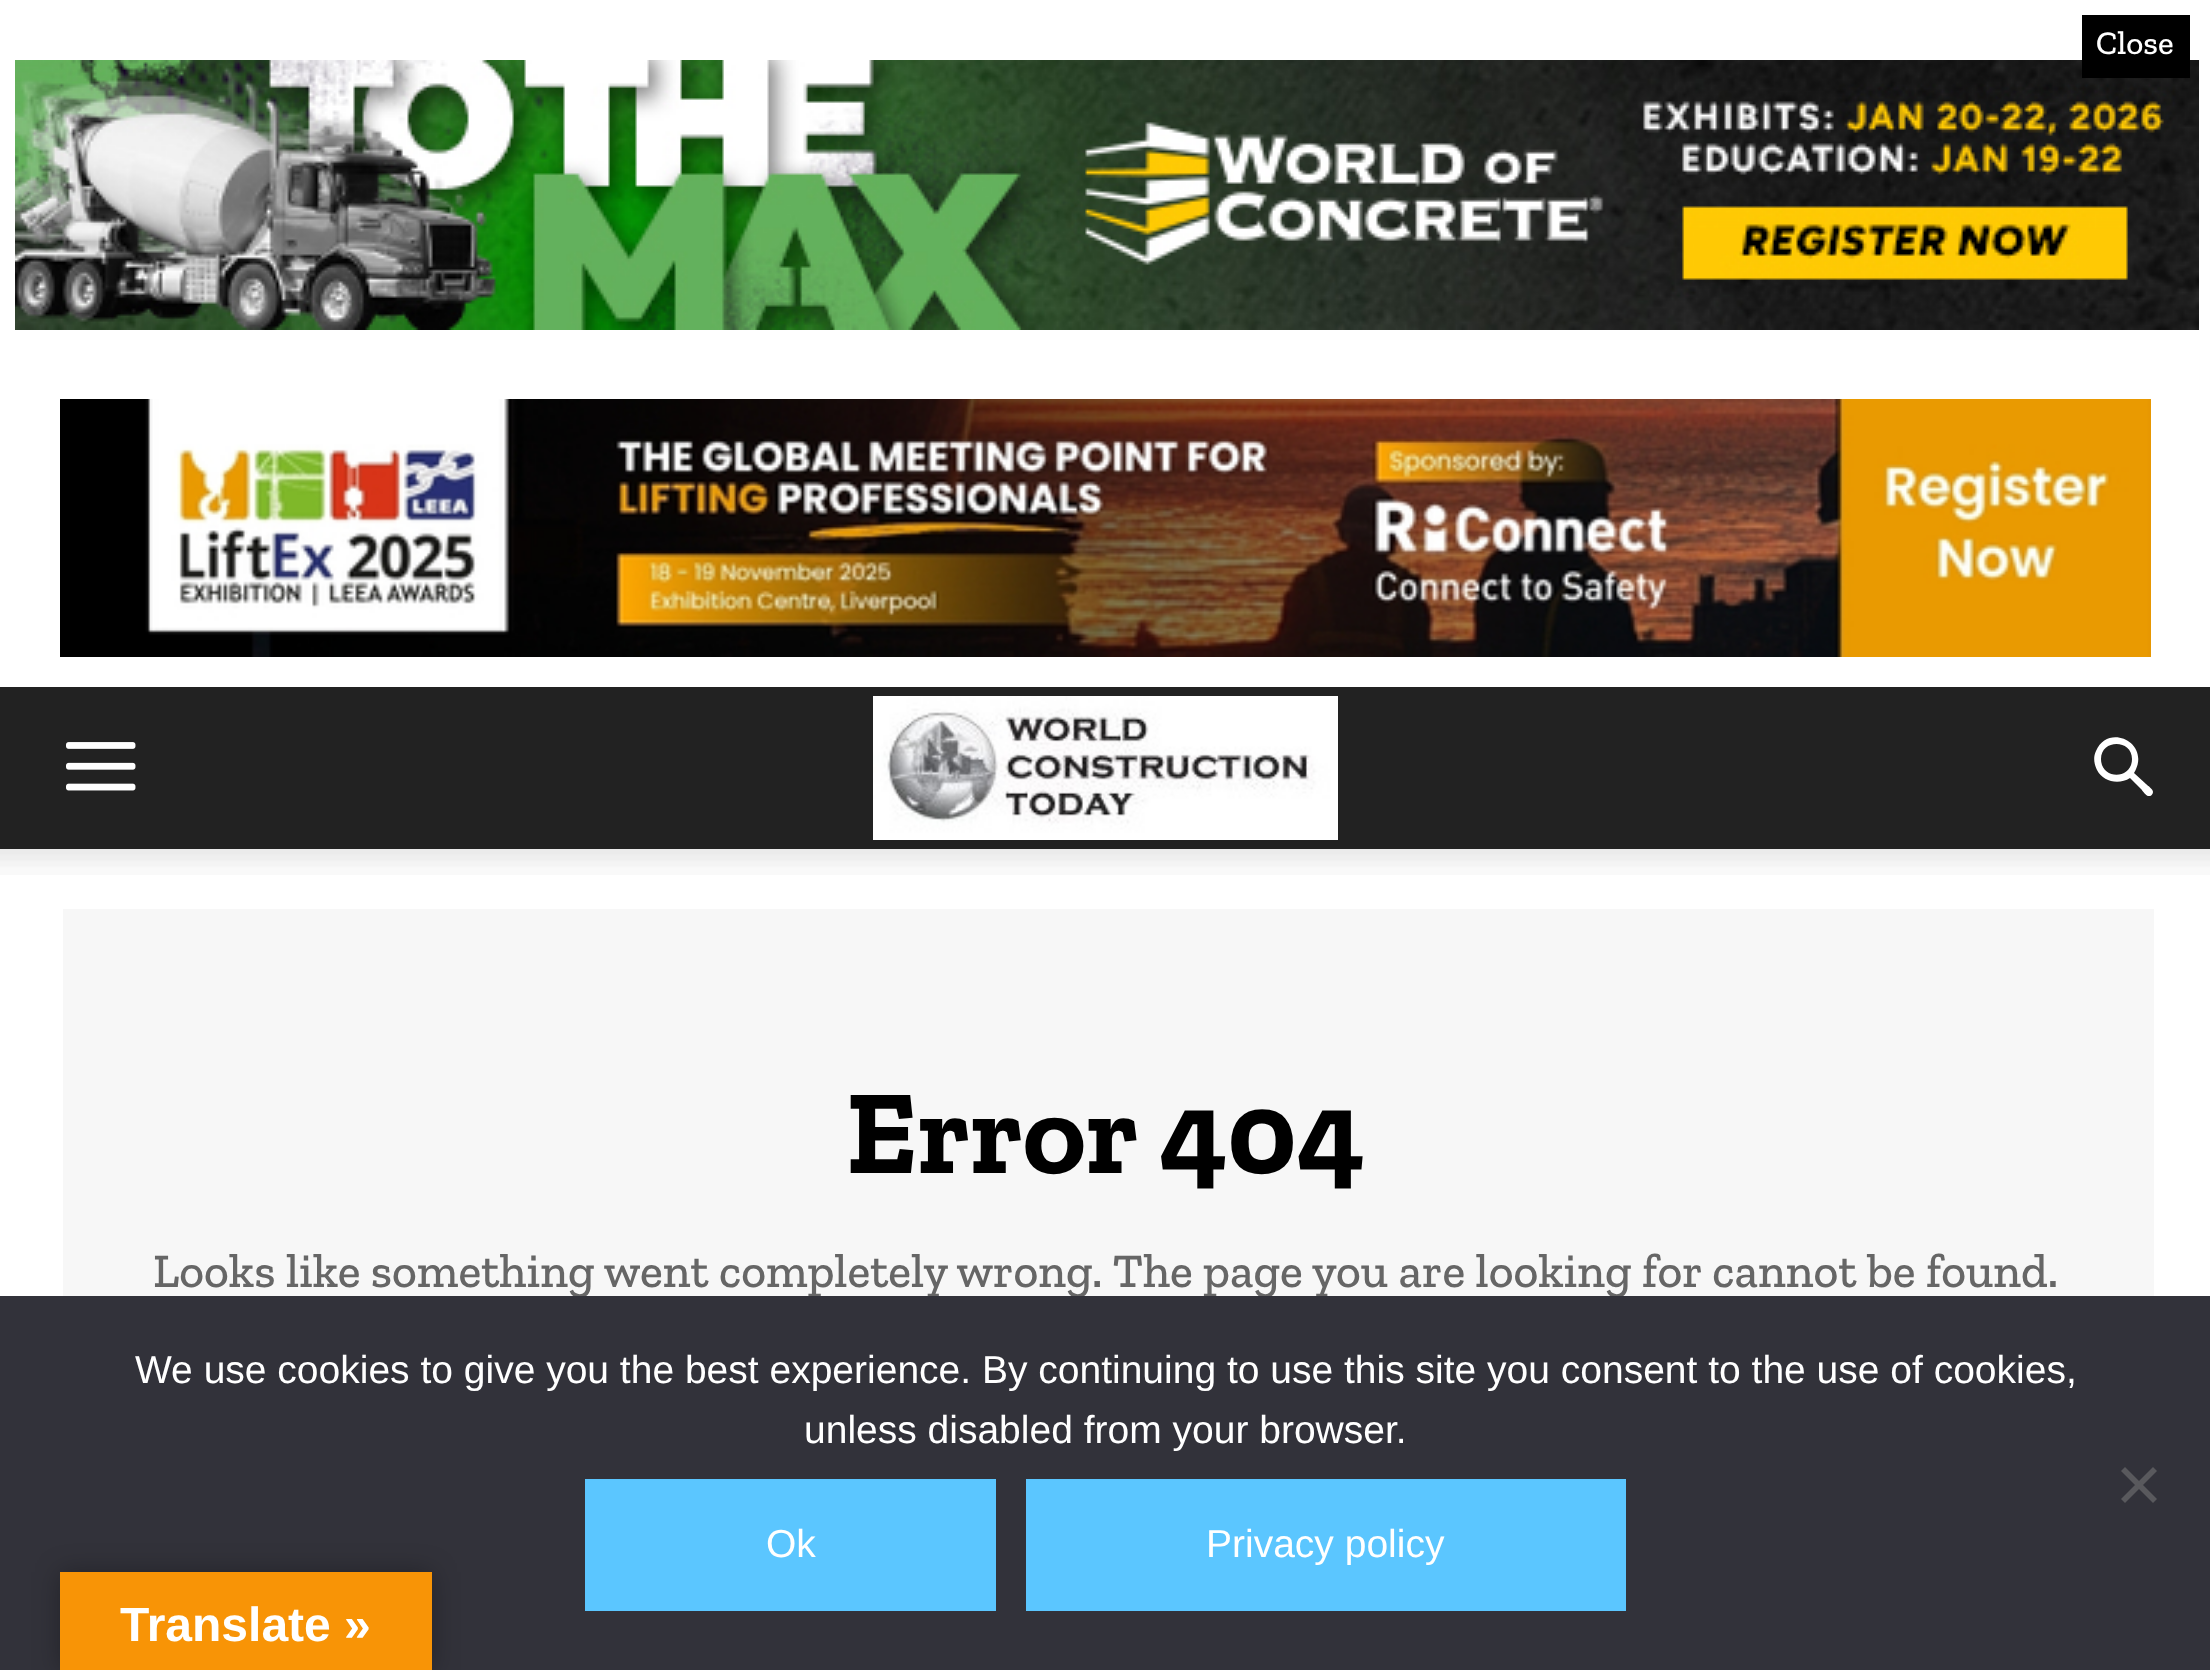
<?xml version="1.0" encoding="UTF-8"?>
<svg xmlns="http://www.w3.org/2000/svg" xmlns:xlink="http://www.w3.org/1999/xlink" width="2210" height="1670">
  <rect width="100%" height="100%" fill="#ffffff" />
  <image x="15" y="60" width="2184" height="270" xlink:href="image1.png" />
  <rect x="2082" y="15" width="108" height="63" fill="#000000" />
  <image x="60" y="399" width="2091" height="258" xlink:href="image2.png" />
  <rect y="687" width="2210" height="162" fill="#222222" />
  <image x="66" y="742" width="70" height="49" xlink:href="image3.png" />
  <image x="873" y="696" width="465" height="144" xlink:href="image4.png" />
  <path d="M 2132 759 c 0 21 -31 21 -31 0 c 0 -20 31 -20 31 0 z m 21 33 c 0 -3 -5 -6 -7 -8 l -12 -11 c 18 -30 -26 -51 -38 -22 c -3 6 -2 13 1 19 c 6 12 22 15 33 8 l 11 11 c 2 2 5 8 9 7 c 1 0 3 -2 3 -4 z" fill="#ffffff" />
  <image x="0" y="849" width="2210" height="26" xlink:href="image5.png" />
  <rect x="63" y="909" width="2091" height="387" fill="#f7f7f7" />
  <text x="2096" y="54" style="font-family: Zilla Slab; font-size: 33px; font-weight: 500; fill: #ffffff">Close</text>
  <text x="846" y="1173" style="font-family: Zilla Slab; font-size: 120px; font-weight: bold; fill: #000000">Error 404</text>
  <text x="153" y="1287" style="font-family: Zilla Slab; font-size: 48px; font-weight: 500; fill: #666666">Looks like something went completely wrong. The page you are looking for cannot be found.</text>
  <rect y="1296" width="2210" height="374" fill="#32323a" />
  <text x="135" y="1383" style="font-family: Liberation Sans; font-size: 39px; fill: #ffffff">We use cookies to give you the best experience. By continuing to use this site you consent to the use of cookies,</text>
  <text x="804" y="1443" style="font-family: Liberation Sans; font-size: 39px; fill: #ffffff">unless disabled from your browser.</text>
  <path d="M 2153 1467 l 4 4 l -32 32 l -4 -4 z" fill="#59595d" />
  <path d="M 2121 1471 l 4 -4 l 32 32 l -4 4 z" fill="#59595d" />
  <rect x="585" y="1479" width="411" height="132" fill="#5bc6ff" />
  <text x="766" y="1557" style="font-family: Liberation Sans; font-size: 39px; fill: #ffffff">Ok</text>
  <rect x="1026" y="1479" width="600" height="132" fill="#5bc6ff" />
  <text x="1206" y="1557" style="font-family: Liberation Sans; font-size: 39px; fill: #ffffff">Privacy policy</text>
  <rect x="60" y="1572" width="372" height="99" fill="#000000" fill-opacity="0.3" filter="blur(13.5px)" />
  <rect x="60" y="1572" width="372" height="98" fill="#f89406" />
  <text x="120" y="1641" style="font-family: Liberation Sans; font-size: 48px; font-weight: bold; fill: #ffffff">Translate »</text>
</svg>
